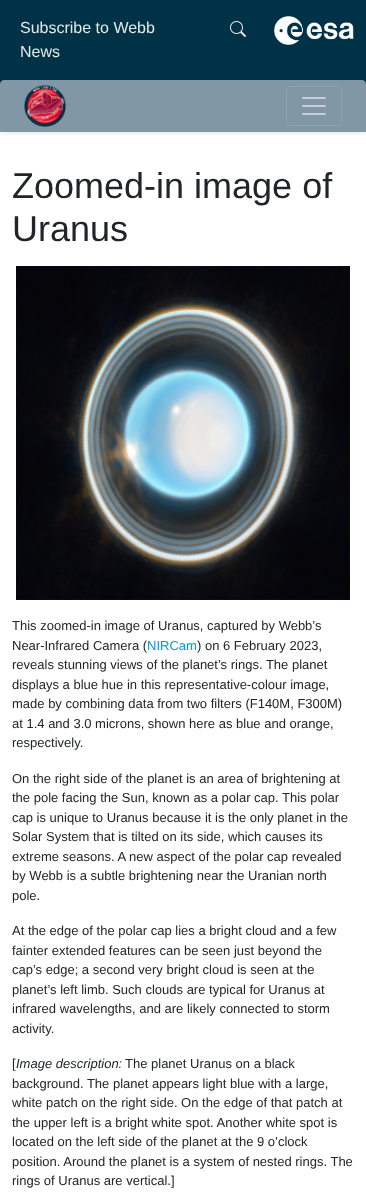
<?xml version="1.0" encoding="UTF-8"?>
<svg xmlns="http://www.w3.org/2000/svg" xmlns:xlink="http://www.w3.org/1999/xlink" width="366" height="1200">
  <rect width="100%" height="100%" fill="#ffffff" />
  <rect y="2" width="366" height="132" fill="#000000" fill-opacity="0.07" filter="blur(2px)" />
  <rect width="366" height="84" fill="#003247" />
  <image x="230" y="21" width="16" height="16" xlink:href="image1.png" />
  <image x="274" y="16" width="80" height="29" xlink:href="image2.png" />
  <path d="M 4 80 h 358 c 2 0 4 2 4 4 v 48 h -366 v -48 c 0 -2 2 -4 4 -4 z" fill="#8197a6" />
  <image x="24" y="85" width="42" height="42" xlink:href="image3.png" />
  <rect x="286.5" y="86.5" width="55" height="39" rx="3.5" fill="none" stroke="#8ea1af" />
  <image x="302" y="97" width="24" height="18" xlink:href="image4.png" />
  <image x="16" y="266" width="334" height="334" xlink:href="image5.png" />
  <text x="20" y="33" style="font-family: Liberation Sans; font-size: 16px; fill: #e8e8e4">Subscribe to Webb</text>
  <text x="20" y="57" style="font-family: Liberation Sans; font-size: 16px; fill: #e8e8e4">News</text>
  <text x="12" y="198" style="font-family: Liberation Sans; font-size: 36px; fill: #212529">Zoomed-in image of</text>
  <text x="12" y="241" style="font-family: Liberation Sans; font-size: 36px; fill: #212529">Uranus</text>
  <text x="12" y="630" style="font-family: Liberation Sans; font-size: 13px; fill: #212529">This zoomed-in image of Uranus, captured by Webb’s</text>
  <text x="12" y="650" style="font-family: Liberation Sans; font-size: 13px; fill: #212529">Near-Infrared Camera (</text>
  <text x="147" y="650" style="font-family: Liberation Sans; font-size: 13px; fill: #009bdb">NIRCam</text>
  <text x="197" y="650" style="font-family: Liberation Sans; font-size: 13px; fill: #212529">) on 6 February 2023,</text>
  <text x="12" y="669" style="font-family: Liberation Sans; font-size: 13px; fill: #212529">reveals stunning views of the planet’s rings. The planet</text>
  <text x="12" y="689" style="font-family: Liberation Sans; font-size: 13px; fill: #212529">displays a blue hue in this representative-colour image,</text>
  <text x="12" y="708" style="font-family: Liberation Sans; font-size: 13px; fill: #212529">made by combining data from two filters (F140M, F300M)</text>
  <text x="12" y="728" style="font-family: Liberation Sans; font-size: 13px; fill: #212529">at 1.4 and 3.0 microns, shown here as blue and orange,</text>
  <text x="12" y="747" style="font-family: Liberation Sans; font-size: 13px; fill: #212529">respectively.</text>
  <text x="12" y="783" style="font-family: Liberation Sans; font-size: 13px; fill: #212529">On the right side of the planet is an area of brightening at</text>
  <text x="12" y="802" style="font-family: Liberation Sans; font-size: 13px; fill: #212529">the pole facing the Sun, known as a polar cap. This polar</text>
  <text x="12" y="822" style="font-family: Liberation Sans; font-size: 13px; fill: #212529">cap is unique to Uranus because it is the only planet in the</text>
  <text x="12" y="841" style="font-family: Liberation Sans; font-size: 13px; fill: #212529">Solar System that is tilted on its side, which causes its</text>
  <text x="12" y="861" style="font-family: Liberation Sans; font-size: 13px; fill: #212529">extreme seasons. A new aspect of the polar cap revealed</text>
  <text x="12" y="880" style="font-family: Liberation Sans; font-size: 13px; fill: #212529">by Webb is a subtle brightening near the Uranian north</text>
  <text x="12" y="900" style="font-family: Liberation Sans; font-size: 13px; fill: #212529">pole.</text>
  <text x="12" y="935" style="font-family: Liberation Sans; font-size: 13px; fill: #212529">At the edge of the polar cap lies a bright cloud and a few</text>
  <text x="12" y="955" style="font-family: Liberation Sans; font-size: 13px; fill: #212529">fainter extended features can be seen just beyond the</text>
  <text x="12" y="974" style="font-family: Liberation Sans; font-size: 13px; fill: #212529">cap’s edge; a second very bright cloud is seen at the</text>
  <text x="12" y="994" style="font-family: Liberation Sans; font-size: 13px; fill: #212529">planet’s left limb. Such clouds are typical for Uranus at</text>
  <text x="12" y="1013" style="font-family: Liberation Sans; font-size: 13px; fill: #212529">infrared wavelengths, and are likely connected to storm</text>
  <text x="12" y="1033" style="font-family: Liberation Sans; font-size: 13px; fill: #212529">activity.</text>
  <text x="12" y="1068" style="font-family: Liberation Sans; font-size: 13px; fill: #212529">[</text>
  <text x="16" y="1068" style="font-family: Liberation Sans; font-size: 13px; font-style: italic; fill: #212529">Image description:</text>
  <text x="125" y="1068" style="font-family: Liberation Sans; font-size: 13px; fill: #212529">The planet Uranus on a black</text>
  <text x="12" y="1088" style="font-family: Liberation Sans; font-size: 13px; fill: #212529">background. The planet appears light blue with a large,</text>
  <text x="12" y="1107" style="font-family: Liberation Sans; font-size: 13px; fill: #212529">white patch on the right side. On the edge of that patch at</text>
  <text x="12" y="1127" style="font-family: Liberation Sans; font-size: 13px; fill: #212529">the upper left is a bright white spot. Another white spot is</text>
  <text x="12" y="1146" style="font-family: Liberation Sans; font-size: 13px; fill: #212529">located on the left side of the planet at the 9 o’clock</text>
  <text x="12" y="1166" style="font-family: Liberation Sans; font-size: 13px; fill: #212529">position. Around the planet is a system of nested rings. The</text>
  <text x="12" y="1185" style="font-family: Liberation Sans; font-size: 13px; fill: #212529">rings of Uranus are vertical.]</text>
</svg>
